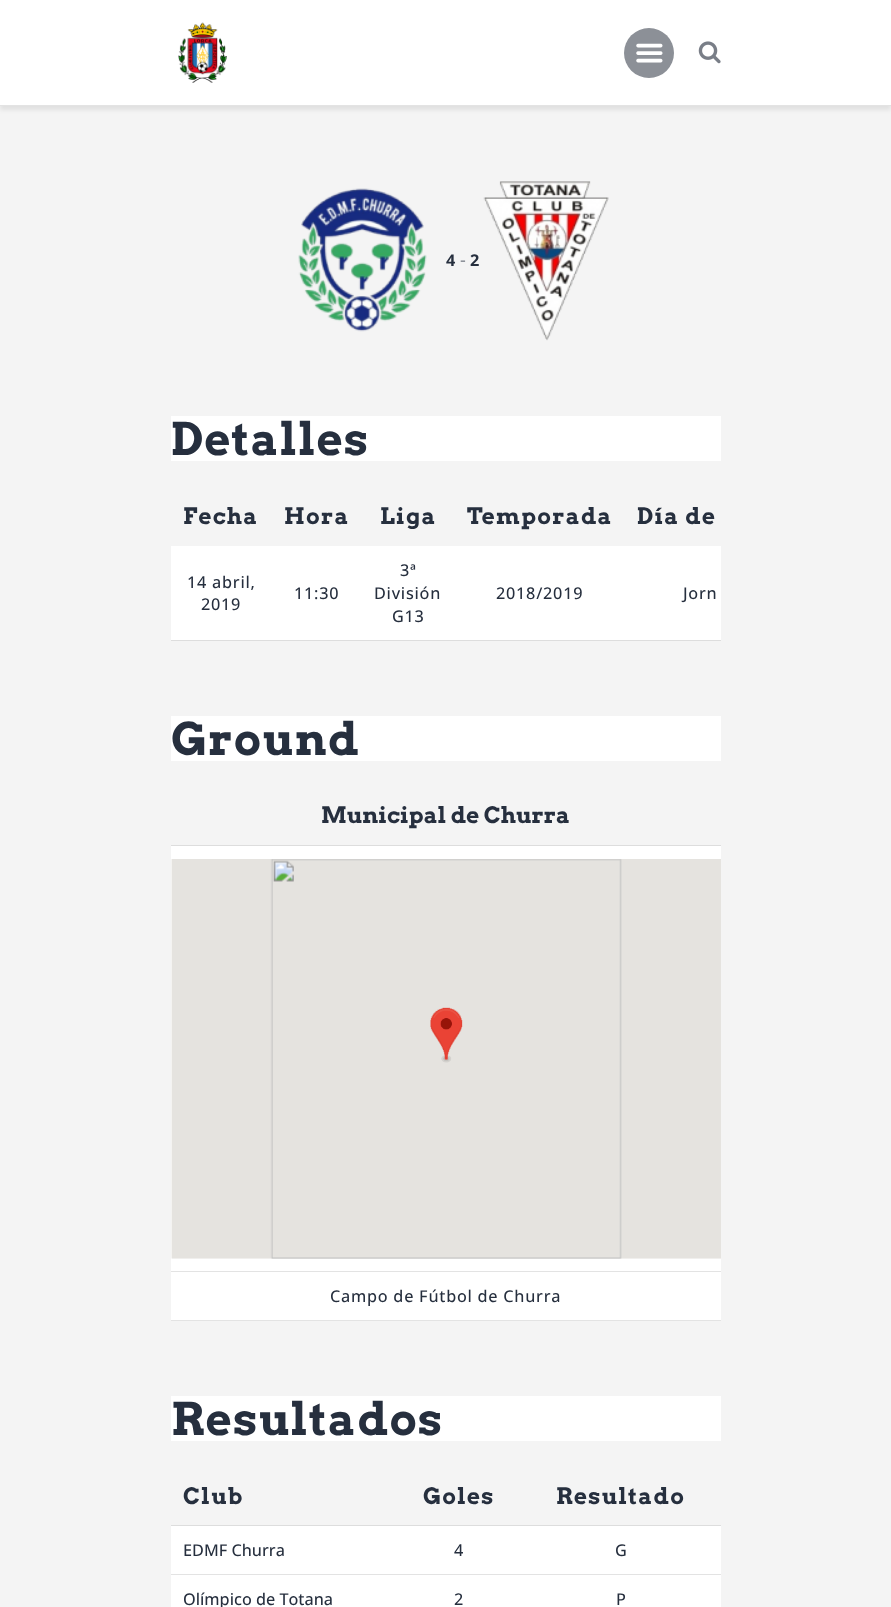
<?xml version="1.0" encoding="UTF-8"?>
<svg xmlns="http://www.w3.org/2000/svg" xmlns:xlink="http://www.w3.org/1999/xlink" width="891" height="1607">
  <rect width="100%" height="100%" fill="#f4f4f4" />
  <rect y="4" width="891" height="106" fill="#000000" fill-opacity="0.08" filter="blur(2px)" />
  <rect width="891" height="105" fill="#ffffff" />
  <rect y="105" width="891" height="1" fill="#e3e3e3" />
  <image x="178" y="22" width="49" height="61" xlink:href="image1.png" />
  <circle cx="649" cy="53" r="25" fill="#8c9097" />
  <image x="636" y="43" width="27" height="20" xlink:href="image2.png" />
  <image x="698" y="41" width="23" height="23" xlink:href="image3.png" />
  <image x="298" y="188" width="129" height="144" xlink:href="image4.png" />
  <image x="483" y="181" width="126" height="160" xlink:href="image5.png" />
  <rect x="171" y="416" width="550" height="45" fill="#ffffff" />
  <rect x="171" y="546" width="550" height="94" fill="#ffffff" />
  <rect x="171" y="640" width="550" height="1" fill="#dddddd" />
  <rect x="171" y="716" width="550" height="45" fill="#ffffff" />
  <rect x="171" y="846" width="550" height="474" fill="#ffffff" />
  <rect x="171" y="845" width="550" height="1" fill="#dddddd" />
  <image x="171" y="859" width="550" height="400" xlink:href="image6.png" />
  <image x="430" y="1007" width="33" height="56" xlink:href="image7.png" />
  <rect x="171" y="1271" width="550" height="1" fill="#e3e3e3" />
  <rect x="171" y="1320" width="550" height="1" fill="#e3e3e3" />
  <rect x="171" y="1396" width="550" height="45" fill="#ffffff" />
  <rect x="171" y="1526" width="550" height="81" fill="#ffffff" />
  <rect x="171" y="1525" width="550" height="1" fill="#dddddd" />
  <rect x="171" y="1574" width="550" height="1" fill="#e3e3e3" />
  <text x="446" y="266" style="font-family: Open Sans; font-size: 16.25px; font-weight: bold; fill: #262f3e">4</text>
  <text x="460" y="266" style="font-family: Open Sans; font-size: 18px; fill: #797e87">-</text>
  <text x="470" y="266" style="font-family: Open Sans; font-size: 16.25px; font-weight: bold; fill: #262f3e">2</text>
  <text x="171" y="455" style="font-family: Arvo; font-size: 45px; font-weight: bold; letter-spacing: 1.25px; fill: #262f3e">Detalles</text>
  <text x="183" y="524" style="font-family: Arvo; font-size: 22.5px; font-weight: bold; letter-spacing: 1.25px; fill: #262f3e">Fecha</text>
  <text x="284" y="524" style="font-family: Arvo; font-size: 22.5px; font-weight: bold; letter-spacing: 1.25px; fill: #262f3e">Hora</text>
  <text x="380" y="524" style="font-family: Arvo; font-size: 22.5px; font-weight: bold; letter-spacing: 1.25px; fill: #262f3e">Liga</text>
  <text x="467" y="524" style="font-family: Arvo; font-size: 22.5px; font-weight: bold; letter-spacing: 1.25px; fill: #262f3e">Temporada</text>
  <text x="637" y="524" style="font-family: Arvo; font-size: 22.5px; font-weight: bold; letter-spacing: 1.25px; fill: #262f3e">Día de</text>
  <text x="187" y="588" style="font-family: Open Sans; font-size: 16.25px; font-weight: 500; letter-spacing: 0.75px; fill: #262f3e">14 abril,</text>
  <text x="201" y="610" style="font-family: Open Sans; font-size: 16.25px; font-weight: 500; letter-spacing: 0.75px; fill: #262f3e">2019</text>
  <text x="294" y="599" style="font-family: Open Sans; font-size: 16.25px; font-weight: 500; letter-spacing: 0.75px; fill: #262f3e">11:30</text>
  <text x="400" y="576" style="font-family: Open Sans; font-size: 16.25px; font-weight: 500; letter-spacing: 0.75px; fill: #262f3e">3ª</text>
  <text x="374" y="599" style="font-family: Open Sans; font-size: 16.25px; font-weight: 500; letter-spacing: 0.75px; fill: #262f3e">División</text>
  <text x="392" y="622" style="font-family: Open Sans; font-size: 16.25px; font-weight: 500; letter-spacing: 0.75px; fill: #262f3e">G13</text>
  <text x="496" y="599" style="font-family: Open Sans; font-size: 16.25px; font-weight: 500; letter-spacing: 0.75px; fill: #262f3e">2018/2019</text>
  <text x="683" y="599" style="font-family: Open Sans; font-size: 16.25px; font-weight: 500; letter-spacing: 0.75px; fill: #262f3e">Jorn</text>
  <text x="171" y="755" style="font-family: Arvo; font-size: 45px; font-weight: bold; letter-spacing: 1.25px; fill: #262f3e">Ground</text>
  <text x="321" y="823" style="font-family: Arvo; font-size: 22.5px; font-weight: bold; fill: #262f3e">Municipal de Churra</text>
  <text x="330" y="1302" style="font-family: Open Sans; font-size: 16.25px; font-weight: 500; letter-spacing: 0.75px; fill: #262f3e">Campo de Fútbol de Churra</text>
  <text x="171" y="1435" style="font-family: Arvo; font-size: 45px; font-weight: bold; letter-spacing: 1.25px; fill: #262f3e">Resultados</text>
  <text x="183" y="1504" style="font-family: Arvo; font-size: 22.5px; font-weight: bold; letter-spacing: 1.25px; fill: #262f3e">Club</text>
  <text x="423" y="1504" style="font-family: Arvo; font-size: 22.5px; font-weight: bold; letter-spacing: 1.25px; fill: #262f3e">Goles</text>
  <text x="556" y="1504" style="font-family: Arvo; font-size: 22.5px; font-weight: bold; letter-spacing: 1.25px; fill: #262f3e">Resultado</text>
  <text x="183" y="1556" style="font-family: Open Sans; font-size: 16.25px; font-weight: 500; fill: #262f3e">EDMF Churra</text>
  <text x="454" y="1556" style="font-family: Open Sans; font-size: 16.25px; font-weight: 500; letter-spacing: 0.75px; fill: #262f3e">4</text>
  <text x="615" y="1556" style="font-family: Open Sans; font-size: 16.25px; font-weight: 500; letter-spacing: 0.75px; fill: #262f3e">G</text>
  <text x="183" y="1605" style="font-family: Open Sans; font-size: 16.25px; font-weight: 500; fill: #262f3e">Olímpico de Totana</text>
  <text x="454" y="1605" style="font-family: Open Sans; font-size: 16.25px; font-weight: 500; letter-spacing: 0.75px; fill: #262f3e">2</text>
  <text x="616" y="1605" style="font-family: Open Sans; font-size: 16.25px; font-weight: 500; letter-spacing: 0.75px; fill: #262f3e">P</text>
</svg>
